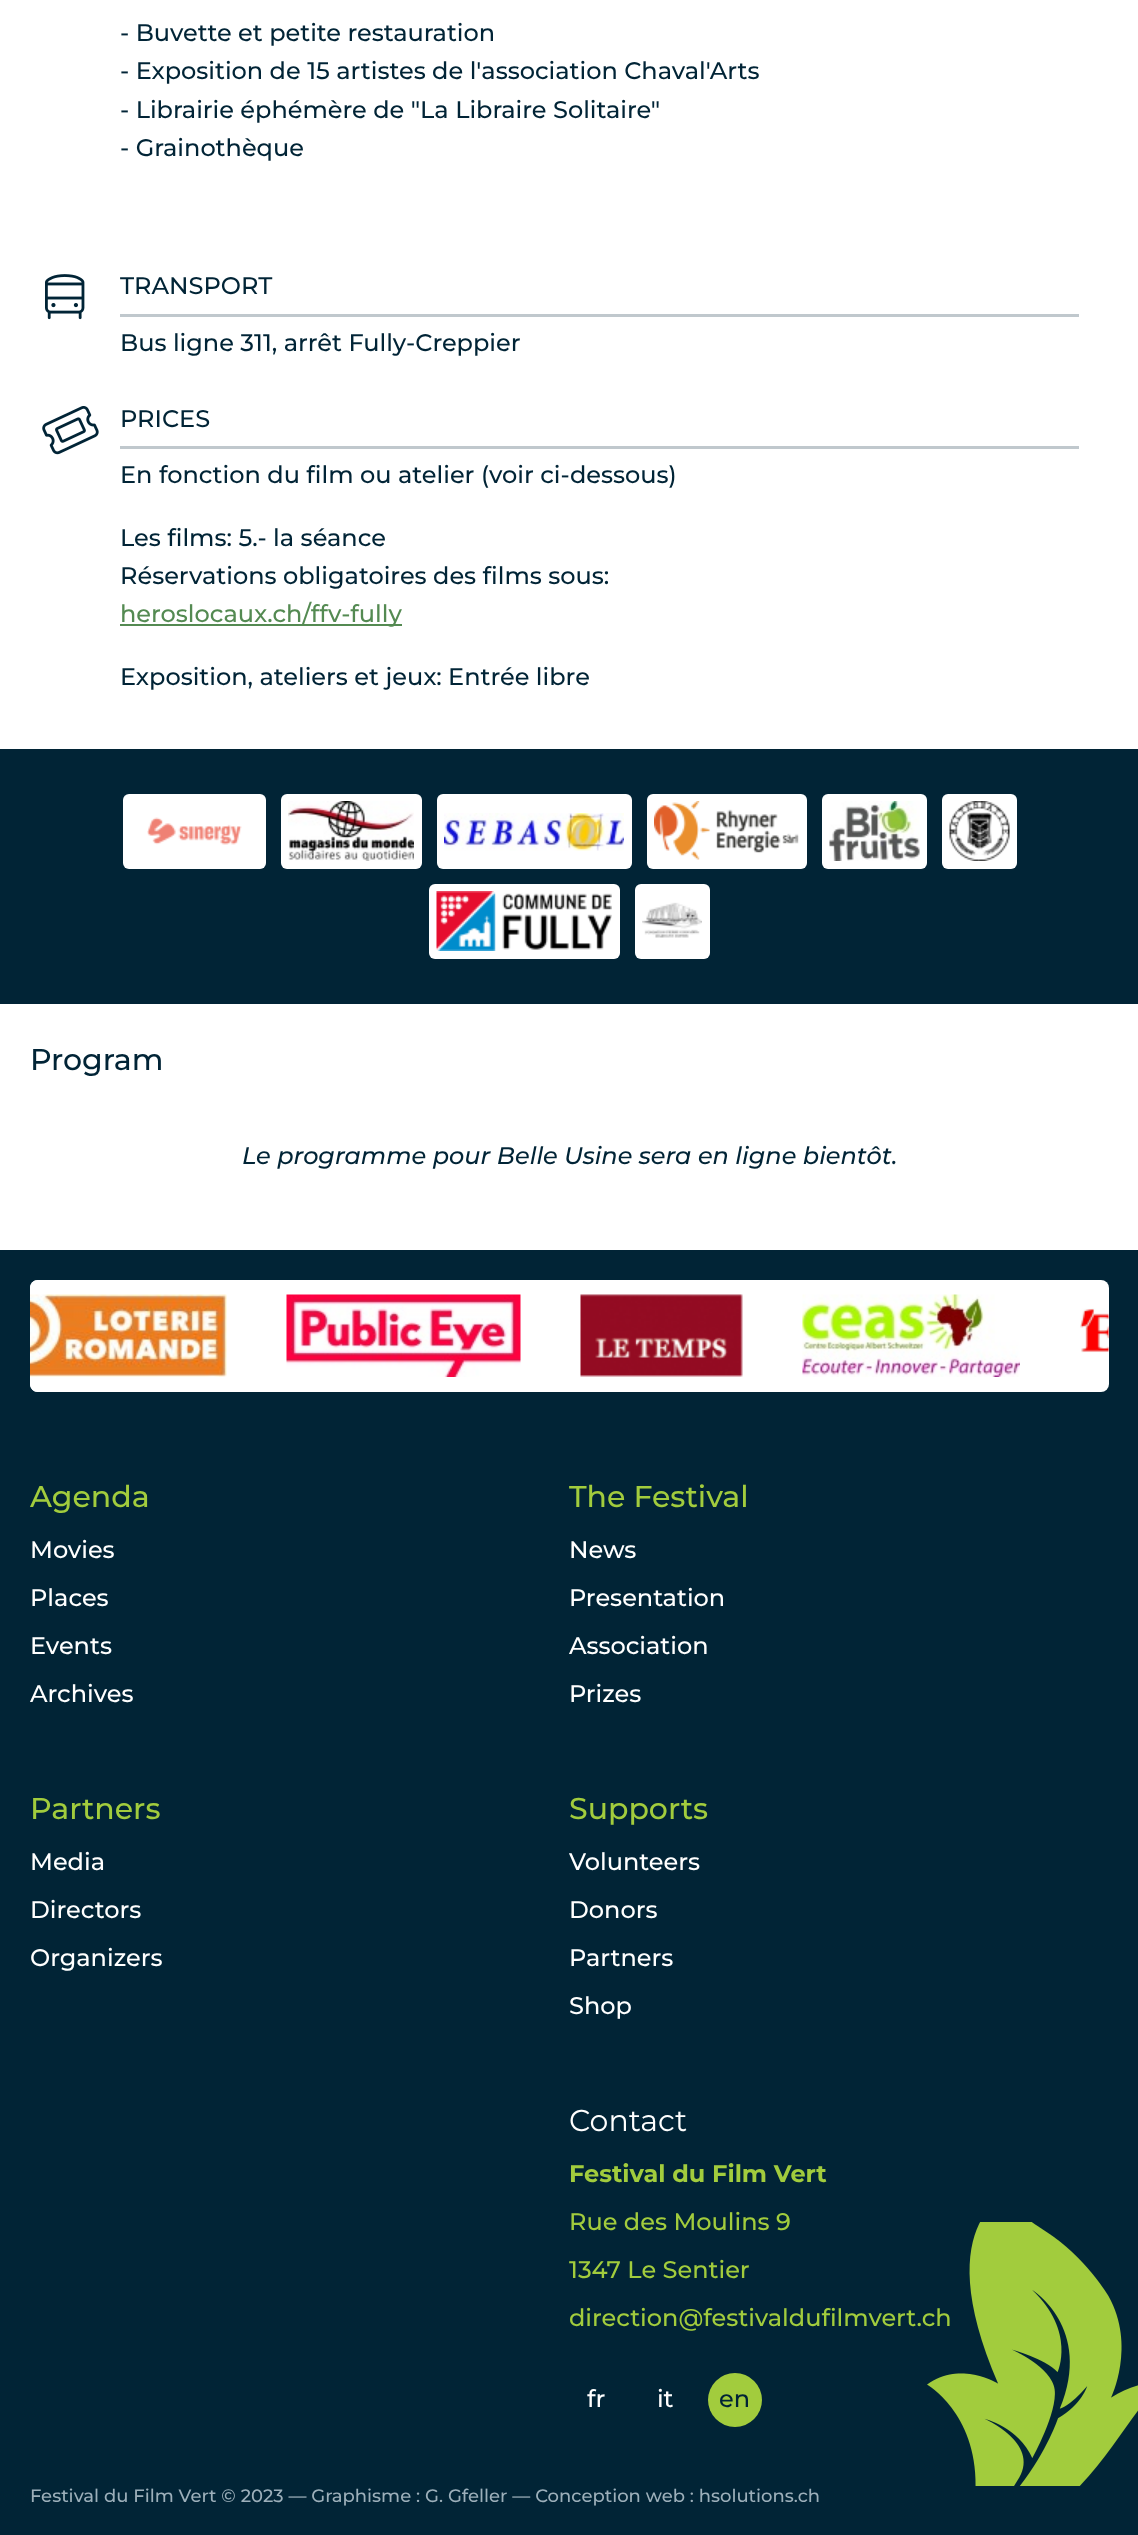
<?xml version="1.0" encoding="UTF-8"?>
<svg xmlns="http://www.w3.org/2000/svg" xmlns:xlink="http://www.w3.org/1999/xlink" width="1138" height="2535">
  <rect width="100%" height="100%" fill="#012436" />
  <rect width="1138" height="749" fill="#ffffff" />
  <image x="45" y="274" width="40" height="46" xlink:href="image1.png" />
  <rect x="120" y="314" width="959" height="3" fill="#c0c8cd" />
  <image x="42" y="406" width="57" height="49" xlink:href="image2.png" />
  <rect x="120" y="446" width="959" height="3" fill="#c0c8cd" />
  <rect x="120" y="624" width="282" height="2" fill="#548a52" />
  <rect x="123" y="794" width="143" height="75" rx="6" fill="#ffffff" />
  <image x="147" y="817" width="95" height="28" xlink:href="image3.png" />
  <rect x="281" y="794" width="141" height="75" rx="6" fill="#ffffff" />
  <image x="288" y="801" width="126" height="60" xlink:href="image4.png" />
  <rect x="437" y="794" width="195" height="75" rx="6" fill="#ffffff" />
  <image x="444" y="813" width="180" height="38" xlink:href="image5.png" />
  <rect x="647" y="794" width="160" height="75" rx="6" fill="#ffffff" />
  <image x="654" y="801" width="145" height="59" xlink:href="image6.png" />
  <rect x="822" y="794" width="105" height="75" rx="6" fill="#ffffff" />
  <image x="829" y="801" width="91" height="60" xlink:href="image7.png" />
  <rect x="942" y="794" width="75" height="75" rx="6" fill="#ffffff" />
  <image x="949" y="801" width="61" height="60" xlink:href="image8.png" />
  <rect x="429" y="884" width="191" height="75" rx="6" fill="#ffffff" />
  <image x="436" y="891" width="176" height="60" xlink:href="image9.png" />
  <rect x="635" y="884" width="75" height="75" rx="6" fill="#ffffff" />
  <image x="642" y="902" width="60" height="36" xlink:href="image10.png" />
  <rect y="1004" width="1138" height="246" fill="#ffffff" />
  <rect x="30" y="1280" width="1079" height="112" rx="8" fill="#ffffff" />
  <path d="M 38 1280 h 219 v 112 h -219 c -4.5 0 -8 -3.5 -8 -8 v -96 c 0 -4.5 3.5 -8 8 -8 z" fill="#ffffff" />
  <image x="30" y="1294" width="197" height="83" xlink:href="image11.png" />
  <image x="286" y="1294" width="235" height="83" xlink:href="image12.png" />
  <image x="580" y="1294" width="163" height="83" xlink:href="image13.png" />
  <image x="802" y="1294" width="218" height="83" xlink:href="image14.png" />
  <image x="1080" y="1308" width="29" height="45" xlink:href="image15.png" />
  <image x="927" y="2222" width="211" height="264" xlink:href="image16.png" />
  <circle cx="735" cy="2400" r="27" fill="#a2cc3d" />
  <text x="120" y="41" style="font-family: Montserrat; font-size: 24px; font-weight: 500; fill: #012436">- Buvette et petite restauration</text>
  <text x="120" y="79" style="font-family: Montserrat; font-size: 24px; font-weight: 500; fill: #012436">- Exposition de 15 artistes de l'association Chaval'Arts</text>
  <text x="120" y="118" style="font-family: Montserrat; font-size: 24px; font-weight: 500; fill: #012436">- Librairie éphémère de "La Libraire Solitaire"</text>
  <text x="120" y="156" style="font-family: Montserrat; font-size: 24px; font-weight: 500; fill: #012436">- Grainothèque</text>
  <text x="120" y="294" style="font-family: Montserrat; font-size: 24px; font-weight: 500; fill: #012436">TRANSPORT</text>
  <text x="120" y="351" style="font-family: Montserrat; font-size: 24px; font-weight: 500; fill: #012436">Bus ligne 311, arrêt Fully-Creppier</text>
  <text x="120" y="427" style="font-family: Montserrat; font-size: 24px; font-weight: 500; fill: #012436">PRICES</text>
  <text x="120" y="483" style="font-family: Montserrat; font-size: 24px; font-weight: 500; fill: #012436">En fonction du film ou atelier (voir ci-dessous)</text>
  <text x="120" y="546" style="font-family: Montserrat; font-size: 24px; font-weight: 500; fill: #012436">Les films: 5.- la séance</text>
  <text x="120" y="584" style="font-family: Montserrat; font-size: 24px; font-weight: 500; fill: #012436">Réservations obligatoires des films sous:</text>
  <text x="120" y="622" style="font-family: Montserrat; font-size: 24px; font-weight: 500; fill: #548a52">heroslocaux.ch/ffv-fully</text>
  <text x="120" y="685" style="font-family: Montserrat; font-size: 24px; font-weight: 500; fill: #012436">Exposition, ateliers et jeux: Entrée libre</text>
  <text x="30" y="1070" style="font-family: Montserrat; font-size: 30px; font-weight: 500; fill: #012436">Program</text>
  <text x="242" y="1164" style="font-family: Montserrat; font-size: 24px; font-weight: 500; font-style: italic; fill: #012436">Le programme pour Belle Usine sera en ligne bientôt.</text>
  <text x="30" y="1507" style="font-family: Montserrat; font-size: 30px; font-weight: 500; fill: #a2cc3d">Agenda</text>
  <text x="30" y="1558" style="font-family: Montserrat; font-size: 24px; font-weight: 500; fill: #ffffff">Movies</text>
  <text x="30" y="1606" style="font-family: Montserrat; font-size: 24px; font-weight: 500; fill: #ffffff">Places</text>
  <text x="30" y="1654" style="font-family: Montserrat; font-size: 24px; font-weight: 500; fill: #ffffff">Events</text>
  <text x="30" y="1702" style="font-family: Montserrat; font-size: 24px; font-weight: 500; fill: #ffffff">Archives</text>
  <text x="569" y="1507" style="font-family: Montserrat; font-size: 30px; font-weight: 500; fill: #a2cc3d">The Festival</text>
  <text x="569" y="1558" style="font-family: Montserrat; font-size: 24px; font-weight: 500; fill: #ffffff">News</text>
  <text x="569" y="1606" style="font-family: Montserrat; font-size: 24px; font-weight: 500; fill: #ffffff">Presentation</text>
  <text x="569" y="1654" style="font-family: Montserrat; font-size: 24px; font-weight: 500; fill: #ffffff">Association</text>
  <text x="569" y="1702" style="font-family: Montserrat; font-size: 24px; font-weight: 500; fill: #ffffff">Prizes</text>
  <text x="30" y="1819" style="font-family: Montserrat; font-size: 30px; font-weight: 500; fill: #a2cc3d">Partners</text>
  <text x="30" y="1870" style="font-family: Montserrat; font-size: 24px; font-weight: 500; fill: #ffffff">Media</text>
  <text x="30" y="1918" style="font-family: Montserrat; font-size: 24px; font-weight: 500; fill: #ffffff">Directors</text>
  <text x="30" y="1966" style="font-family: Montserrat; font-size: 24px; font-weight: 500; fill: #ffffff">Organizers</text>
  <text x="569" y="1819" style="font-family: Montserrat; font-size: 30px; font-weight: 500; fill: #a2cc3d">Supports</text>
  <text x="569" y="1870" style="font-family: Montserrat; font-size: 24px; font-weight: 500; fill: #ffffff">Volunteers</text>
  <text x="569" y="1918" style="font-family: Montserrat; font-size: 24px; font-weight: 500; fill: #ffffff">Donors</text>
  <text x="569" y="1966" style="font-family: Montserrat; font-size: 24px; font-weight: 500; fill: #ffffff">Partners</text>
  <text x="569" y="2014" style="font-family: Montserrat; font-size: 24px; font-weight: 500; fill: #ffffff">Shop</text>
  <text x="569" y="2131" style="font-family: Montserrat; font-size: 30px; fill: #ffffff">Contact</text>
  <text x="569" y="2182" style="font-family: Montserrat; font-size: 24px; font-weight: bold; fill: #a2cc3d">Festival du Film Vert</text>
  <text x="569" y="2230" style="font-family: Montserrat; font-size: 24px; font-weight: 500; fill: #a2cc3d">Rue des Moulins 9</text>
  <text x="569" y="2278" style="font-family: Montserrat; font-size: 24px; font-weight: 500; fill: #a2cc3d">1347 Le Sentier</text>
  <text x="569" y="2326" style="font-family: Montserrat; font-size: 24px; font-weight: 500; fill: #a2cc3d">direction@festivaldufilmvert.ch</text>
  <text x="587" y="2407" style="font-family: Montserrat; font-size: 24px; font-weight: 500; fill: #ffffff">fr</text>
  <text x="657" y="2407" style="font-family: Montserrat; font-size: 24px; font-weight: 500; fill: #ffffff">it</text>
  <text x="719" y="2407" style="font-family: Montserrat; font-size: 24px; font-weight: 500; fill: #012436">en</text>
  <text x="30" y="2502" style="font-family: Montserrat; font-size: 18px; font-weight: 500; fill: #9cafba">Festival du Film Vert © 2023 — Graphisme : G. Gfeller — Conception web : hsolutions.ch</text>
</svg>
